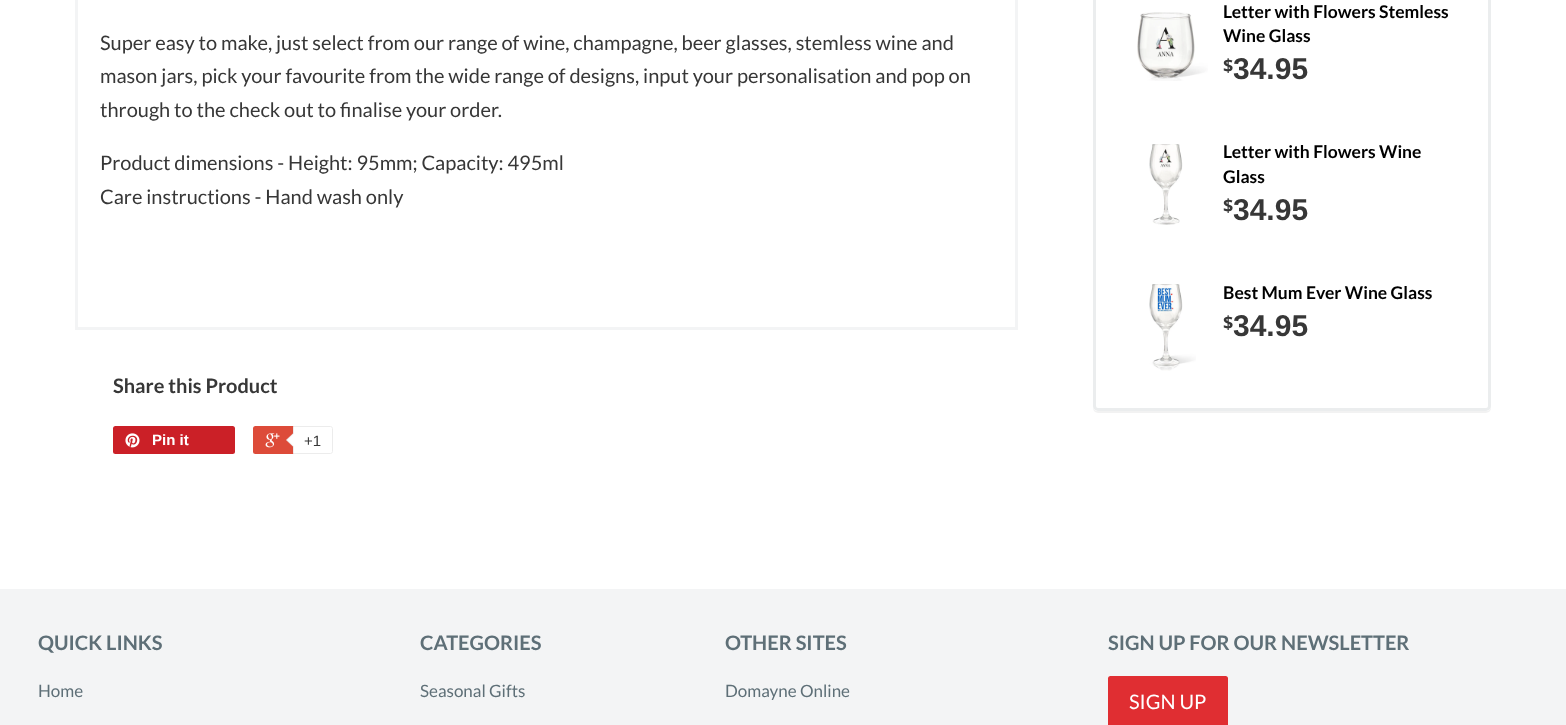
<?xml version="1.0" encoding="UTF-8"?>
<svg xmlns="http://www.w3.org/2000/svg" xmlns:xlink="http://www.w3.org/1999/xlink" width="1566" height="725">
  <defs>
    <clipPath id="clip1"><path d="M 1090 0 h 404 v 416 h -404 z m 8 -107 h 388 c 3 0 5 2 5 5 v 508 c 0 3 -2 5 -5 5 h -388 c -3 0 -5 -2 -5 -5 v -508 c 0 -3 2 -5 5 -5 z" clip-rule="evenodd" /></clipPath>
  </defs>
  <rect width="100%" height="100%" fill="#ffffff" />
  <rect x="76.5" y="-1.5" width="940" height="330" fill="none" stroke="#f3f4f5" stroke-width="3" />
  <rect x="113" y="426" width="122" height="28" rx="2.5" fill="#cb2027" />
  <image x="125" y="433" width="15" height="15" xlink:href="image1.png" />
  <rect x="253" y="426" width="77" height="28" rx="2.5" fill="#dd4b39" />
  <image x="265" y="433" width="15" height="15" xlink:href="image2.png" />
  <path d="M 293.5 426.5 h 37 c 1 0 2 1 2 2 v 23 c 0 1 -1 2 -2 2 h -37 z" fill="#ffffff" stroke="#ececec" />
  <path d="M 294 432.5 v 15 l -8 -7.5 z" fill="#ececec" />
  <path d="M 295 432.5 v 15 l -7.5 -7.5 z" fill="#ffffff" />
  <g clip-path="url(#clip1)">
    <rect x="1093" y="-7" width="398" height="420" rx="5" fill="#000000" fill-opacity="0.05" filter="blur(0.5px)" />
  </g>
  <rect x="1094.5" y="-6.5" width="395" height="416" rx="3.5" fill="none" stroke="#ebedee" stroke-width="3" />
  <image x="1137" y="12" width="71" height="69" xlink:href="image3.png" />
  <image x="1149" y="144" width="34" height="81" xlink:href="image4.png" />
  <image x="1149" y="284" width="47" height="87" xlink:href="image5.png" />
  <rect y="589" width="1566" height="136" fill="#f3f4f5" />
  <rect x="1108" y="676" width="120" height="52" rx="2.5" fill="#e02e32" />
  <text x="100" y="50" style="font-family: Lato; font-size: 20px; fill: #373737">Super easy to make, just select from our range of wine, champagne, beer glasses, stemless wine and</text>
  <text x="100" y="83" style="font-family: Lato; font-size: 20px; fill: #373737">mason jars, pick your favourite from the wide range of designs, input your personalisation and pop on</text>
  <text x="100" y="117" style="font-family: Lato; font-size: 20px; fill: #373737">through to the check out to finalise your order.</text>
  <text x="100" y="170" style="font-family: Lato; font-size: 20px; fill: #373737">Product dimensions - Height: 95mm; Capacity: 495ml</text>
  <text x="100" y="204" style="font-family: Lato; font-size: 20px; fill: #373737">Care instructions - Hand wash only</text>
  <text x="113" y="393" style="font-family: Lato; font-size: 20px; font-weight: bold; fill: #373737">Share this Product</text>
  <text x="152" y="445" style="font-family: Liberation Sans; font-size: 15px; font-weight: bold; fill: #ffffff">Pin it</text>
  <text x="304" y="446" style="font-family: Liberation Sans; font-size: 15px; fill: #373737">+1</text>
  <text x="1223" y="18" style="font-family: Lato; font-size: 17.5px; font-weight: bold; fill: #000000">Letter with Flowers Stemless</text>
  <text x="1223" y="42" style="font-family: Lato; font-size: 17.5px; font-weight: bold; fill: #000000">Wine Glass</text>
  <text x="1223" y="72" style="font-family: Noto Sans; font-size: 18px; font-weight: bold; fill: #373737">$</text>
  <text x="1233" y="79" style="font-family: Liberation Sans; font-size: 30px; font-weight: bold; fill: #373737">34.95</text>
  <text x="1223" y="158" style="font-family: Lato; font-size: 17.5px; font-weight: bold; fill: #000000">Letter with Flowers Wine</text>
  <text x="1223" y="183" style="font-family: Lato; font-size: 17.5px; font-weight: bold; fill: #000000">Glass</text>
  <text x="1223" y="212" style="font-family: Noto Sans; font-size: 18px; font-weight: bold; fill: #373737">$</text>
  <text x="1233" y="220" style="font-family: Liberation Sans; font-size: 30px; font-weight: bold; fill: #373737">34.95</text>
  <text x="1223" y="299" style="font-family: Lato; font-size: 17.5px; font-weight: bold; fill: #000000">Best Mum Ever Wine Glass</text>
  <text x="1223" y="329" style="font-family: Noto Sans; font-size: 18px; font-weight: bold; fill: #373737">$</text>
  <text x="1233" y="336" style="font-family: Liberation Sans; font-size: 30px; font-weight: bold; fill: #373737">34.95</text>
  <text x="38" y="650" style="font-family: Lato; font-size: 20px; font-weight: bold; fill: #5e6f77">QUICK LINKS</text>
  <text x="38" y="697" style="font-family: Lato; font-size: 17px; fill: #5e6f77">Home</text>
  <text x="420" y="650" style="font-family: Lato; font-size: 20px; font-weight: bold; fill: #5e6f77">CATEGORIES</text>
  <text x="420" y="697" style="font-family: Lato; font-size: 17px; fill: #5e6f77">Seasonal Gifts</text>
  <text x="725" y="650" style="font-family: Lato; font-size: 20px; font-weight: bold; fill: #5e6f77">OTHER SITES</text>
  <text x="725" y="697" style="font-family: Lato; font-size: 17px; fill: #5e6f77">Domayne Online</text>
  <text x="1108" y="650" style="font-family: Lato; font-size: 20px; font-weight: bold; fill: #5e6f77">SIGN UP FOR OUR NEWSLETTER</text>
  <text x="1129" y="709" style="font-family: Lato; font-size: 20px; fill: #ffffff">SIGN UP</text>
</svg>
